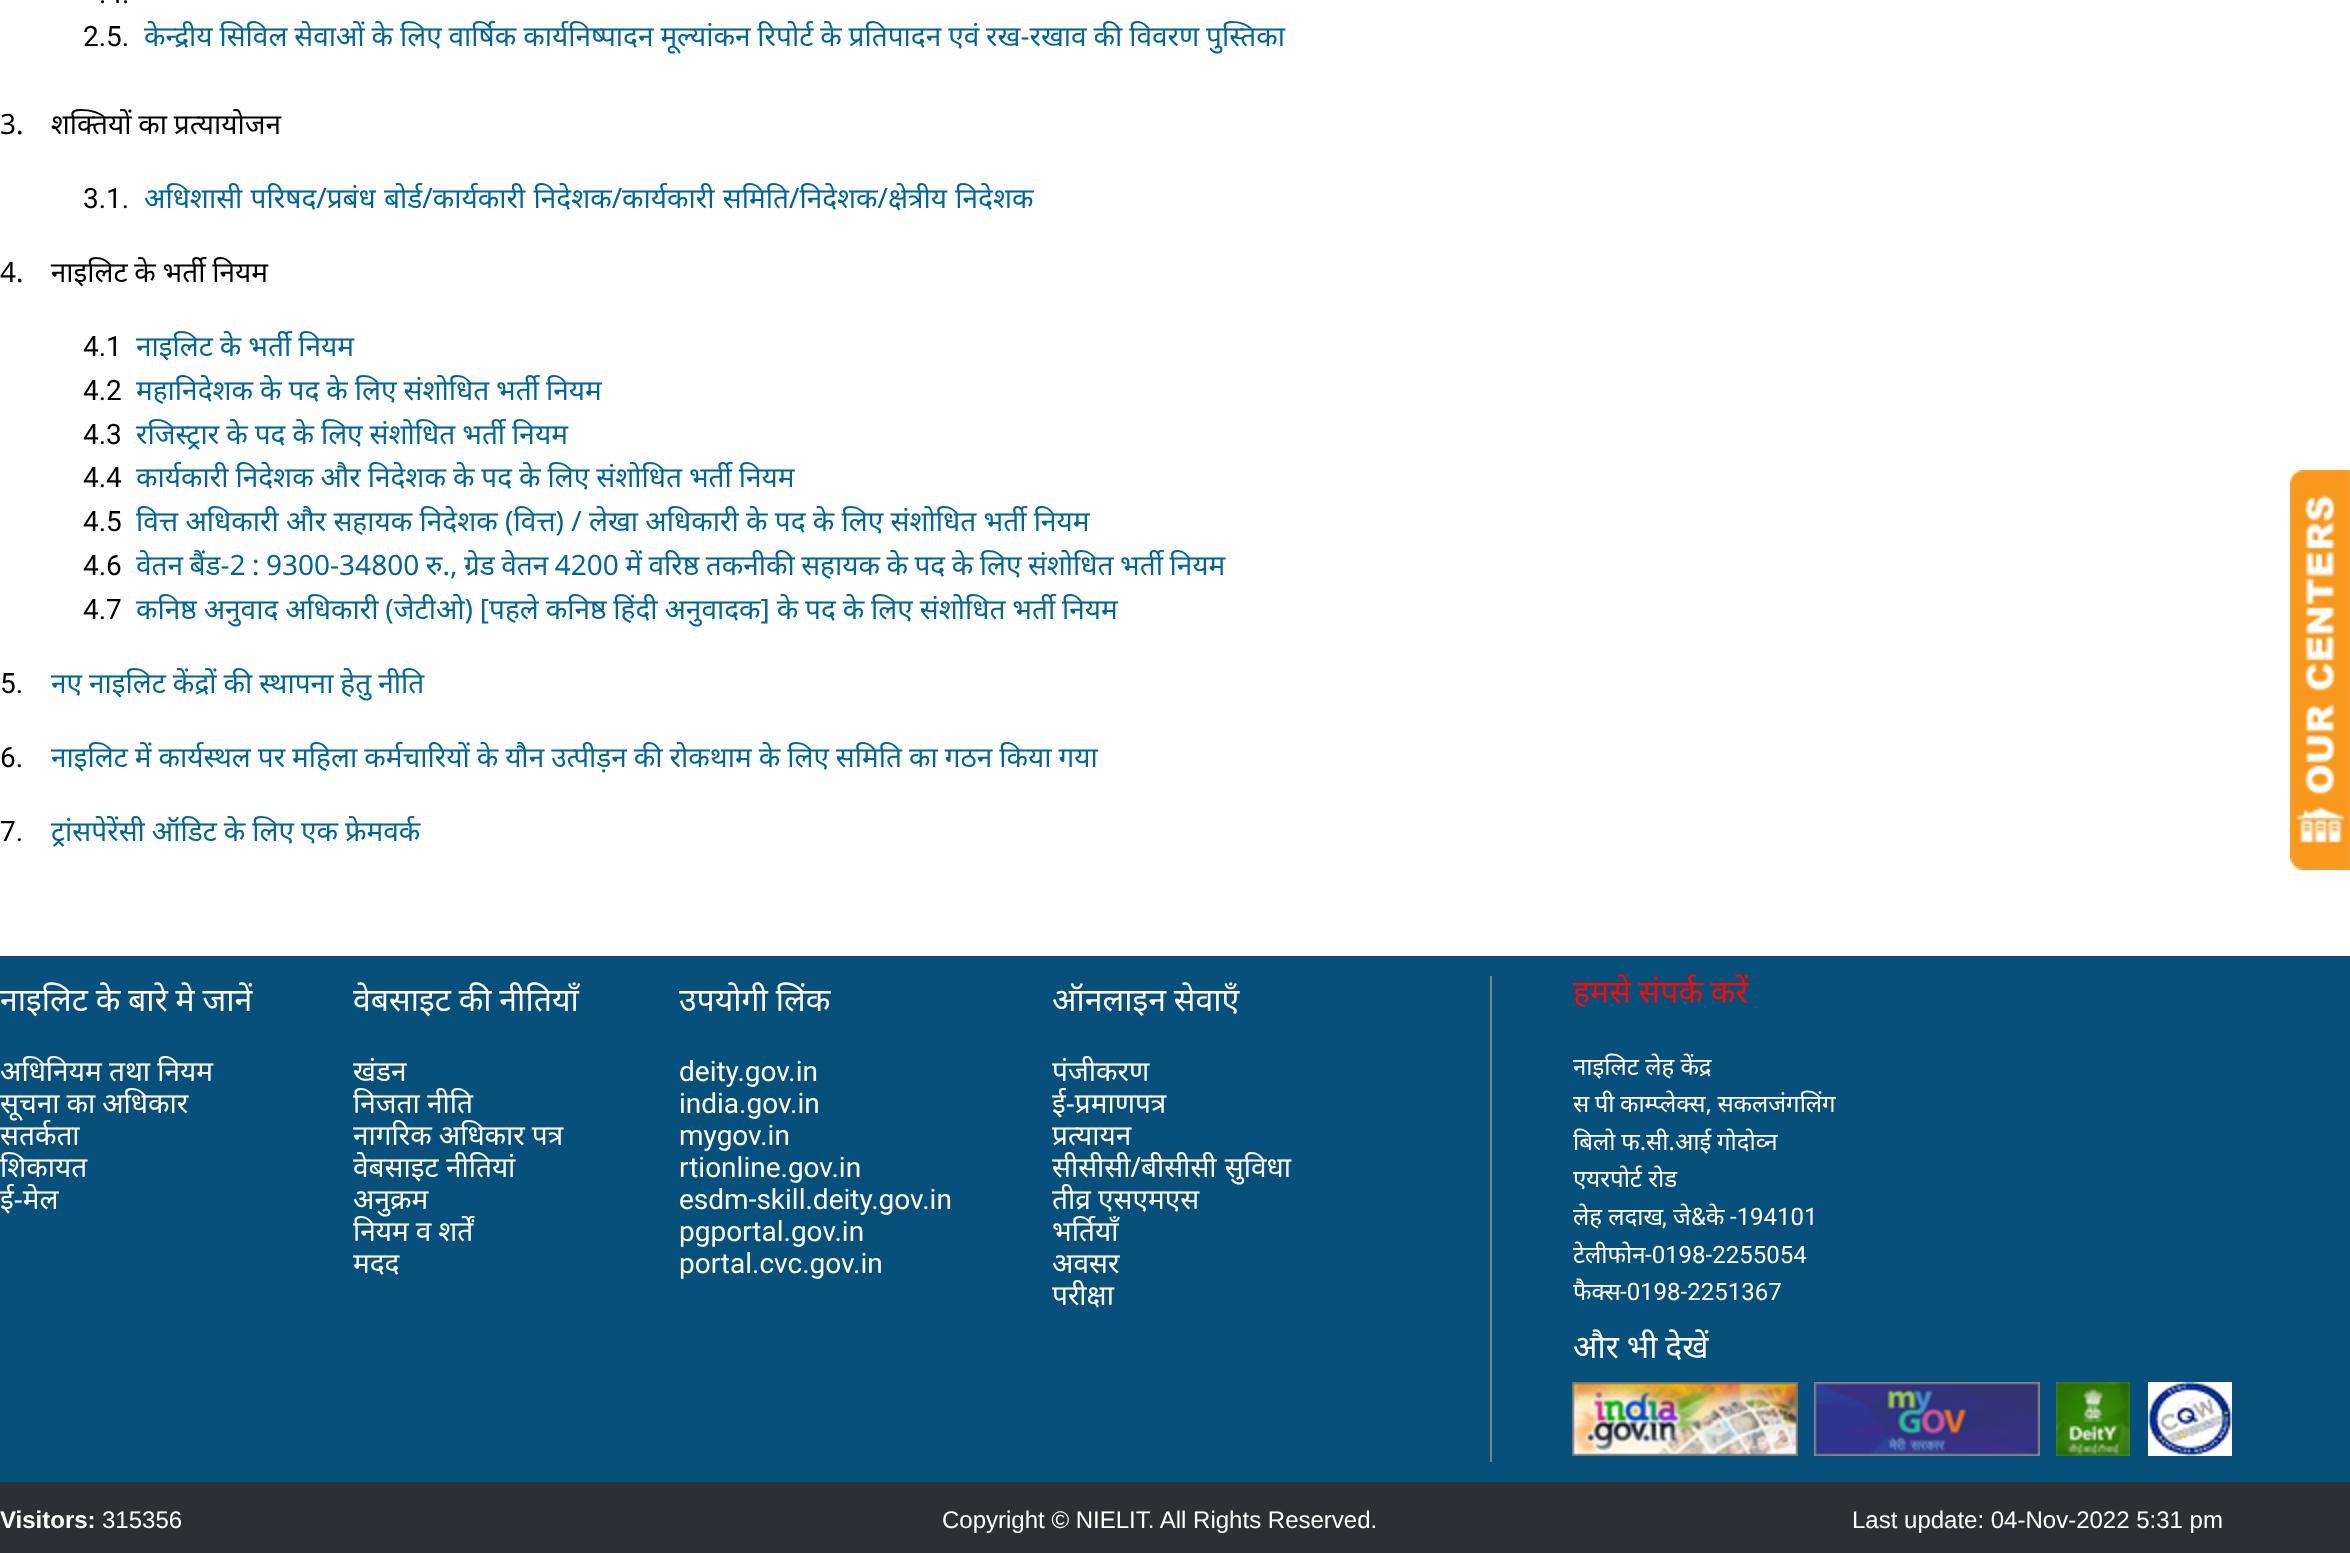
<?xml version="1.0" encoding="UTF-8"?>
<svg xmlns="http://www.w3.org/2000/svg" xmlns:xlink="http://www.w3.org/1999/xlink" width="2350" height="1553">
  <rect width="100%" height="100%" fill="#ffffff" />
  <image x="2290" y="470" width="60" height="400" xlink:href="image1.png" />
  <rect y="956" width="2350" height="526" fill="#07507b" />
  <rect x="1490" y="976" width="2" height="486" fill="#7f8080" />
  <image x="1572" y="1382" width="226" height="74" xlink:href="image2.png" />
  <image x="1814" y="1382" width="226" height="74" xlink:href="image3.png" />
  <image x="2056" y="1382" width="74" height="74" xlink:href="image4.png" />
  <image x="2148" y="1382" width="84" height="74" xlink:href="image5.png" />
  <rect y="1482" width="2350" height="71" fill="#2d2f34" />
  <text x="99" y="3" style="font-family: Roboto; font-size: 28px; fill: #000000">.4.</text>
  <text x="83" y="46" style="font-family: Roboto; font-size: 28px; fill: #000000">2.5.</text>
  <text x="144" y="46" word-spacing="-0.4" style="font-family: Noto Sans; font-size: 28px; fill: #006699">केन्द्रीय सिविल सेवाओं के लिए वार्षिक कार्यनिष्पादन मूल्यांकन रिपोर्ट के प्रतिपादन एवं रख-रखाव की विवरण पुस्तिका</text>
  <text x="0" y="134" word-spacing="-0.5" style="font-family: Noto Sans; font-size: 28px; fill: #000000" xml:space="preserve">3.    शक्तियों का प्रत्यायोजन</text>
  <text x="83" y="208" style="font-family: Roboto; font-size: 28px; fill: #000000">3.1.</text>
  <text x="144" y="208" word-spacing="1" style="font-family: Noto Sans; font-size: 28px; fill: #006699">अधिशासी परिषद/प्रबंध बोर्ड/कार्यकारी निदेशक/कार्यकारी समिति/निदेशक/क्षेत्रीय निदेशक</text>
  <text x="0" y="282" word-spacing="-0.5" style="font-family: Noto Sans; font-size: 28px; fill: #000000" xml:space="preserve">4.    नाइलिट के भर्ती नियम</text>
  <text x="83" y="356" style="font-family: Roboto; font-size: 28px; fill: #000000">4.1</text>
  <text x="136" y="356" word-spacing="-0.3" style="font-family: Noto Sans; font-size: 28px; fill: #006699">नाइलिट के भर्ती नियम</text>
  <text x="83" y="400" style="font-family: Roboto; font-size: 28px; fill: #000000">4.2</text>
  <text x="136" y="400" word-spacing="-0.3" style="font-family: Noto Sans; font-size: 28px; fill: #006699">महानिदेशक के पद के लिए संशोधित भर्ती नियम</text>
  <text x="83" y="444" style="font-family: Roboto; font-size: 28px; fill: #000000">4.3</text>
  <text x="136" y="444" word-spacing="-0.3" style="font-family: Noto Sans; font-size: 28px; fill: #006699">रजिस्ट्रार के पद के लिए संशोधित भर्ती नियम</text>
  <text x="83" y="487" style="font-family: Roboto; font-size: 28px; fill: #000000">4.4</text>
  <text x="136" y="487" word-spacing="-0.3" style="font-family: Noto Sans; font-size: 28px; fill: #006699">कार्यकारी निदेशक और निदेशक के पद के लिए संशोधित भर्ती नियम</text>
  <text x="83" y="531" style="font-family: Roboto; font-size: 28px; fill: #000000">4.5</text>
  <text x="136" y="531" style="font-family: Noto Sans; font-size: 28px; fill: #006699">वित्त अधिकारी और सहायक निदेशक (वित्त) / लेखा अधिकारी के पद के लिए संशोधित भर्ती नियम</text>
  <text x="83" y="575" style="font-family: Roboto; font-size: 28px; fill: #000000">4.6</text>
  <text x="136" y="575" word-spacing="-0.8" style="font-family: Noto Sans; font-size: 28px; fill: #006699">वेतन बैंड-2 : 9300-34800 रु., ग्रेड वेतन 4200 में वरिष्ठ तकनीकी सहायक के पद के लिए संशोधित भर्ती नियम</text>
  <text x="83" y="619" style="font-family: Roboto; font-size: 28px; fill: #000000">4.7</text>
  <text x="136" y="619" word-spacing="-0.4" style="font-family: Noto Sans; font-size: 28px; fill: #006699">कनिष्ठ अनुवाद अधिकारी (जेटीओ) [पहले कनिष्ठ हिंदी अनुवादक] के पद के लिए संशोधित भर्ती नियम</text>
  <text x="0" y="693" style="font-family: Roboto; font-size: 28px; fill: #000000">5.</text>
  <text x="51" y="693" word-spacing="-0.3" style="font-family: Noto Sans; font-size: 28px; fill: #006699">नए नाइलिट केंद्रों की स्थापना हेतु नीति</text>
  <text x="0" y="767" style="font-family: Roboto; font-size: 28px; fill: #000000">6.</text>
  <text x="51" y="767" word-spacing="-0.3" style="font-family: Noto Sans; font-size: 28px; fill: #006699">नाइलिट में कार्यस्थल पर महिला कर्मचारियों के यौन उत्पीड़न की रोकथाम के लिए समिति का गठन किया गया</text>
  <text x="0" y="841" style="font-family: Roboto; font-size: 28px; fill: #000000">7.</text>
  <text x="51" y="841" word-spacing="-0.3" style="font-family: Noto Sans; font-size: 28px; fill: #006699">ट्रांसपेरेंसी ऑडिट के लिए एक फ्रेमवर्क</text>
  <text x="0" y="1011" word-spacing="-0.5" style="font-family: Noto Sans; font-size: 32px; fill: #ffffff">नाइलिट के बारे मे जानें</text>
  <text x="0" y="1081" style="font-family: Noto Sans; font-size: 28px; fill: #ffffff">अधिनियम तथा नियम</text>
  <text x="0" y="1113" word-spacing="-0.3" style="font-family: Noto Sans; font-size: 28px; fill: #ffffff">सूचना का अधिकार</text>
  <text x="0" y="1145" style="font-family: Noto Sans; font-size: 28px; fill: #ffffff">सतर्कता</text>
  <text x="0" y="1177" style="font-family: Noto Sans; font-size: 28px; fill: #ffffff">शिकायत</text>
  <text x="0" y="1209" style="font-family: Noto Sans; font-size: 28px; fill: #ffffff">ई-मेल</text>
  <text x="353" y="1011" word-spacing="-0.5" style="font-family: Noto Sans; font-size: 32px; fill: #ffffff">वेबसाइट की नीतियाँ</text>
  <text x="353" y="1081" style="font-family: Noto Sans; font-size: 28px; fill: #ffffff">खंडन</text>
  <text x="353" y="1113" style="font-family: Noto Sans; font-size: 28px; fill: #ffffff">निजता नीति</text>
  <text x="353" y="1145" word-spacing="-0.3" style="font-family: Noto Sans; font-size: 28px; fill: #ffffff">नागरिक अधिकार पत्र</text>
  <text x="353" y="1177" style="font-family: Noto Sans; font-size: 28px; fill: #ffffff">वेबसाइट नीतियां</text>
  <text x="353" y="1209" style="font-family: Noto Sans; font-size: 28px; fill: #ffffff">अनुक्रम</text>
  <text x="353" y="1241" word-spacing="-0.3" style="font-family: Noto Sans; font-size: 28px; fill: #ffffff">नियम व शर्तें</text>
  <text x="353" y="1273" style="font-family: Noto Sans; font-size: 28px; fill: #ffffff">मदद</text>
  <text x="679" y="1011" word-spacing="-0.5" style="font-family: Noto Sans; font-size: 32px; fill: #ffffff">उपयोगी लिंक</text>
  <text x="679" y="1081" style="font-family: Roboto; font-size: 28px; fill: #ffffff">deity.gov.in</text>
  <text x="679" y="1113" style="font-family: Roboto; font-size: 28px; fill: #ffffff">india.gov.in</text>
  <text x="679" y="1145" style="font-family: Roboto; font-size: 28px; fill: #ffffff">mygov.in</text>
  <text x="679" y="1177" style="font-family: Roboto; font-size: 28px; fill: #ffffff">rtionline.gov.in</text>
  <text x="679" y="1209" style="font-family: Roboto; font-size: 28px; fill: #ffffff">esdm-skill.deity.gov.in</text>
  <text x="679" y="1241" style="font-family: Roboto; font-size: 28px; fill: #ffffff">pgportal.gov.in</text>
  <text x="679" y="1273" style="font-family: Roboto; font-size: 28px; fill: #ffffff">portal.cvc.gov.in</text>
  <text x="1052" y="1011" word-spacing="-0.5" style="font-family: Noto Sans; font-size: 32px; fill: #ffffff">ऑनलाइन सेवाएँ</text>
  <text x="1052" y="1081" style="font-family: Noto Sans; font-size: 28px; fill: #ffffff">पंजीकरण</text>
  <text x="1052" y="1113" style="font-family: Noto Sans; font-size: 28px; fill: #ffffff">ई-प्रमाणपत्र</text>
  <text x="1052" y="1145" style="font-family: Noto Sans; font-size: 28px; fill: #ffffff">प्रत्यायन</text>
  <text x="1052" y="1177" word-spacing="1" style="font-family: Noto Sans; font-size: 28px; fill: #ffffff">सीसीसी/बीसीसी सुविधा</text>
  <text x="1052" y="1209" style="font-family: Noto Sans; font-size: 28px; fill: #ffffff">तीव्र एसएमएस</text>
  <text x="1052" y="1241" style="font-family: Noto Sans; font-size: 28px; fill: #ffffff">भर्तियाँ</text>
  <text x="1052" y="1273" style="font-family: Noto Sans; font-size: 28px; fill: #ffffff">अवसर</text>
  <text x="1052" y="1305" style="font-family: Noto Sans; font-size: 28px; fill: #ffffff">परीक्षा</text>
  <text x="1573" y="1003" word-spacing="-0.5" style="font-family: Noto Sans; font-size: 32px; fill: #ff0600">हमसे संपर्क करें</text>
  <text x="1573" y="1075" style="font-family: Noto Sans; font-size: 24px; fill: #ffffff">नाइलिट लेह केंद्र</text>
  <text x="1573" y="1112" word-spacing="-0.8" style="font-family: Noto Sans; font-size: 24px; fill: #ffffff">स पी काम्प्लेक्स, सकलजंगलिंग</text>
  <text x="1573" y="1150" word-spacing="-0.5" style="font-family: Noto Sans; font-size: 24px; fill: #ffffff">बिलो फ.सी.आई गोदोव्न</text>
  <text x="1573" y="1187" style="font-family: Noto Sans; font-size: 24px; fill: #ffffff">एयरपोर्ट रोड</text>
  <text x="1573" y="1225" style="font-family: Noto Sans; font-size: 24px; fill: #ffffff">लेह लदाख</text>
  <text x="1662" y="1225" style="font-family: Roboto; font-size: 24px; fill: #ffffff">,</text>
  <text x="1673" y="1225" style="font-family: Noto Sans; font-size: 24px; fill: #ffffff">जे</text>
  <text x="1691" y="1225" style="font-family: Roboto; font-size: 24px; fill: #ffffff">&amp;</text>
  <text x="1706" y="1225" style="font-family: Noto Sans; font-size: 24px; fill: #ffffff">के</text>
  <text x="1730" y="1225" style="font-family: Roboto; font-size: 24px; fill: #ffffff">-194101</text>
  <text x="1573" y="1263" style="font-family: Noto Sans; font-size: 24px; fill: #ffffff">टेलीफोन</text>
  <text x="1645" y="1263" style="font-family: Roboto; font-size: 24px; fill: #ffffff">-0198-2255054</text>
  <text x="1573" y="1300" style="font-family: Noto Sans; font-size: 24px; fill: #ffffff">फैक्स</text>
  <text x="1620" y="1300" style="font-family: Roboto; font-size: 24px; fill: #ffffff">-0198-2251367</text>
  <text x="1573" y="1358" word-spacing="-0.5" style="font-family: Noto Sans; font-size: 32px; fill: #ffffff">और भी देखें</text>
  <text x="0" y="1528" style="font-family: Liberation Sans; font-size: 24px; font-weight: bold; fill: #ffffff">Visitors:</text>
  <text x="102" y="1528" style="font-family: Liberation Sans; font-size: 24px; fill: #ffffff">315356</text>
  <text x="942" y="1528" style="font-family: Liberation Sans; font-size: 24px; fill: #ffffff">Copyright © NIELIT. All Rights Reserved.</text>
  <text x="1852" y="1528" style="font-family: Liberation Sans; font-size: 24px; fill: #ffffff">Last update: 04-Nov-2022 5:31 pm</text>
</svg>
